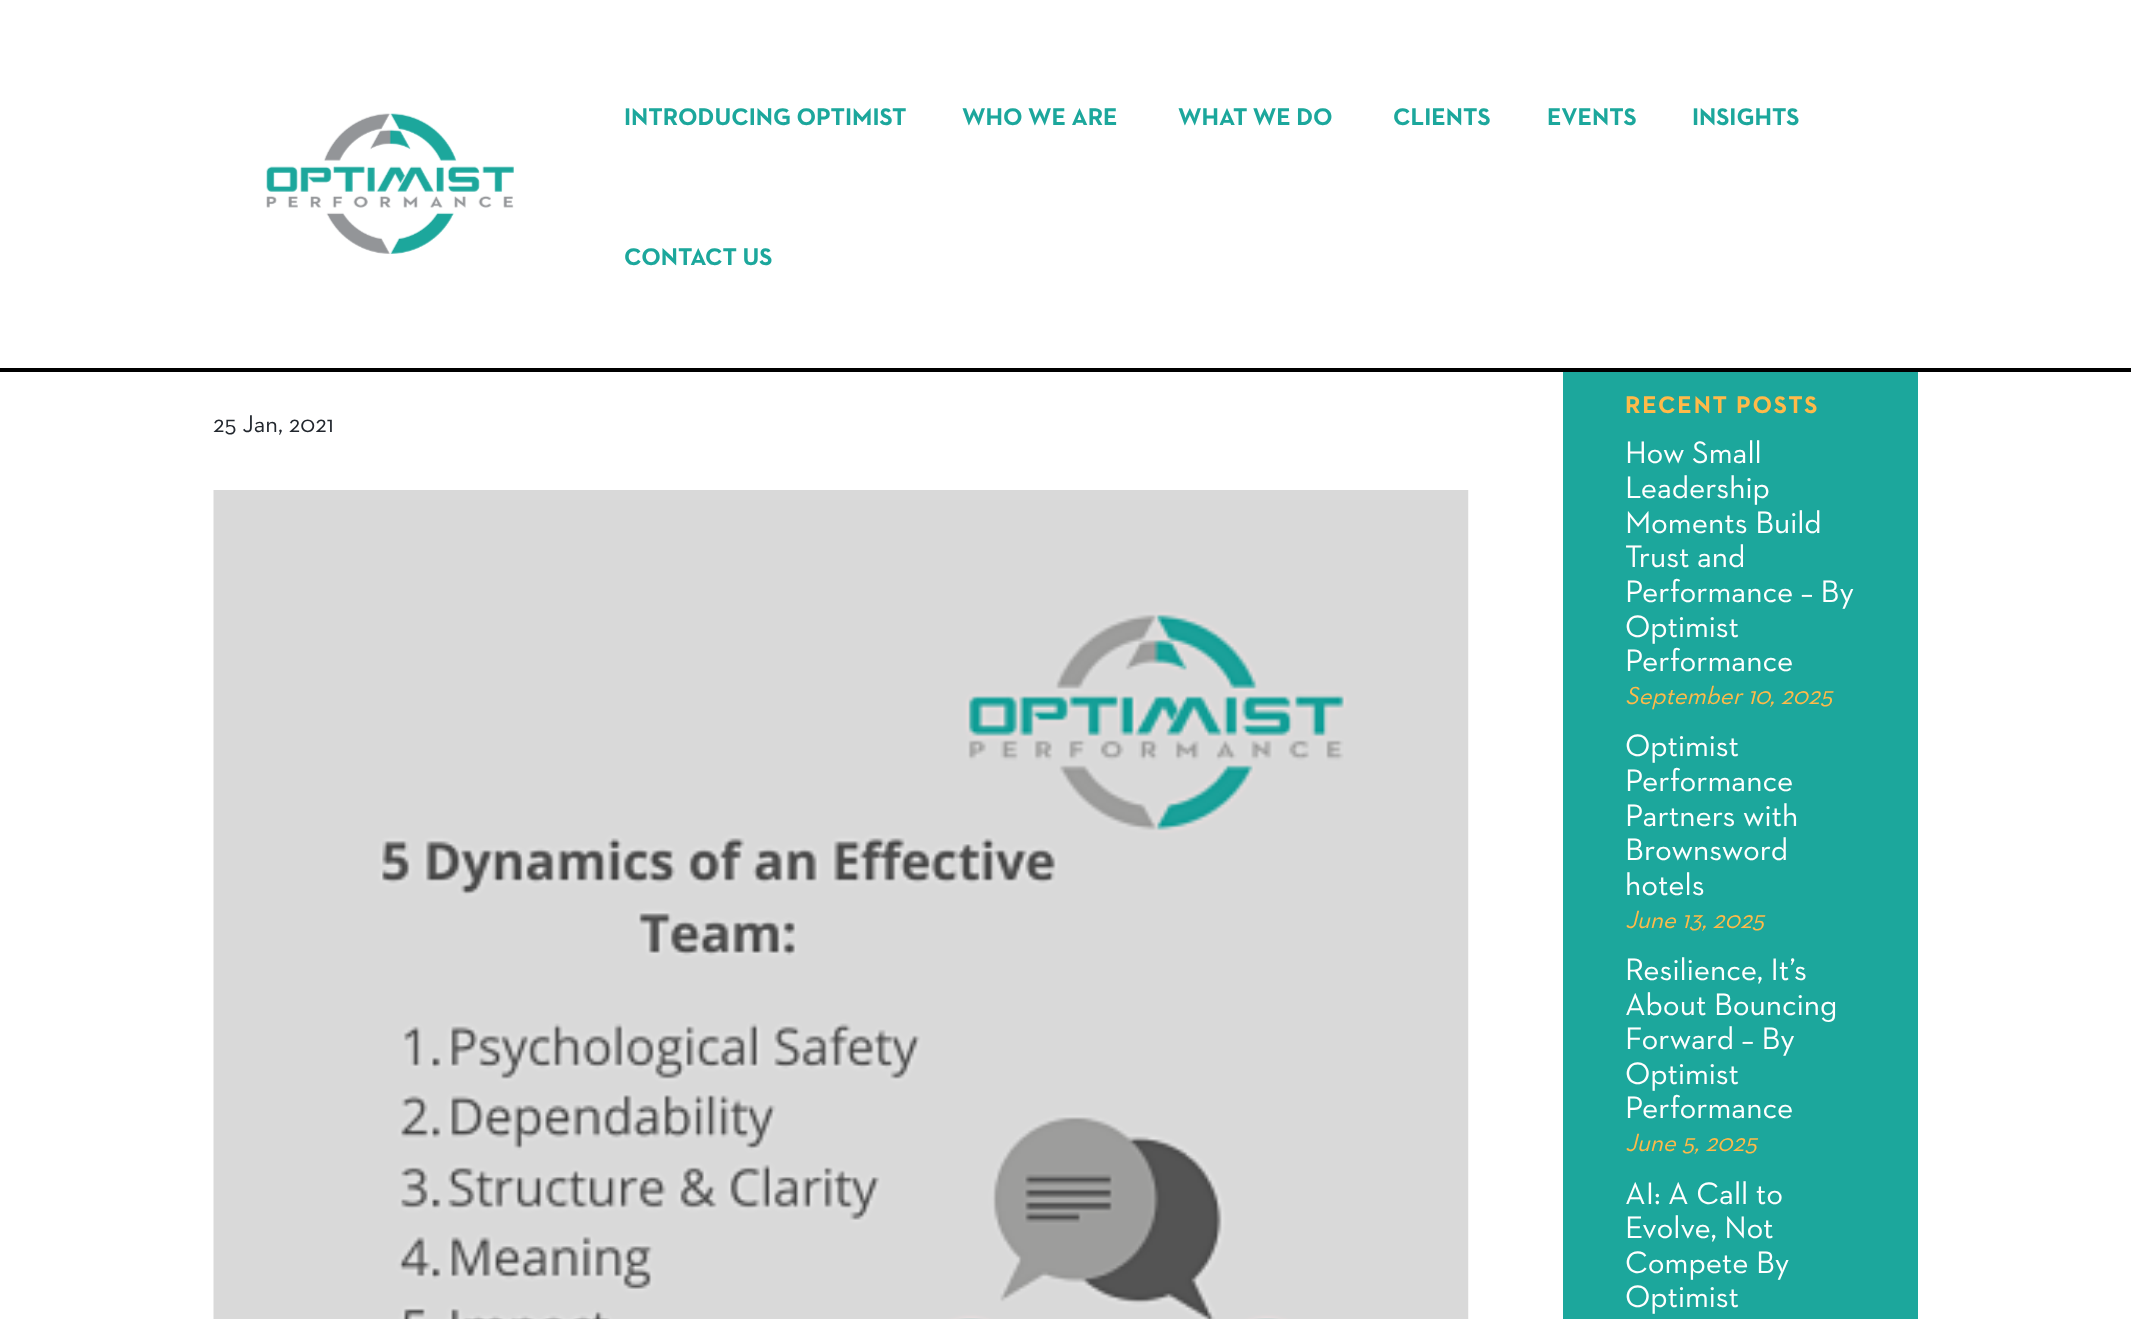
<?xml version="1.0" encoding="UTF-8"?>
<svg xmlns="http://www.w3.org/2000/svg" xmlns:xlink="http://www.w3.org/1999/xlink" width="2131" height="1319">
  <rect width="100%" height="100%" fill="#ffffff" />
  <rect y="368" width="2131" height="4" fill="#000000" />
  <image x="266" y="113" width="248" height="141" xlink:href="image1.png" />
  <image x="213" y="490" width="1256" height="829" xlink:href="image2.png" />
  <rect x="1563" y="372" width="355" height="947" fill="#1ca79c" />
  <text x="624" y="125" style="font-family: 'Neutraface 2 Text'; font-size: 24.5px; font-weight: bold; fill: #1ca79c">INTRODUCING OPTIMIST</text>
  <text x="962" y="125" style="font-family: 'Neutraface 2 Text'; font-size: 24.5px; font-weight: bold; fill: #1ca79c">WHO WE ARE</text>
  <text x="1178" y="125" style="font-family: 'Neutraface 2 Text'; font-size: 24.5px; font-weight: bold; fill: #1ca79c">WHAT WE DO</text>
  <text x="1393" y="125" style="font-family: 'Neutraface 2 Text'; font-size: 24.5px; font-weight: bold; fill: #1ca79c">CLIENTS</text>
  <text x="1547" y="125" style="font-family: 'Neutraface 2 Text'; font-size: 24.5px; font-weight: bold; fill: #1ca79c">EVENTS</text>
  <text x="1692" y="125" style="font-family: 'Neutraface 2 Text'; font-size: 24.5px; font-weight: bold; fill: #1ca79c">INSIGHTS</text>
  <text x="624" y="265" style="font-family: 'Neutraface 2 Text'; font-size: 24.5px; font-weight: bold; fill: #1ca79c">CONTACT US</text>
  <text x="213" y="432" style="font-family: 'Neutraface 2 Text'; font-size: 24.5px; fill: #22272e">25 Jan, 2021</text>
  <text x="1625" y="413" style="font-family: 'Neutraface 2 Text'; font-size: 24.5px; font-weight: bold; letter-spacing: 1.75px; fill: #ffba49">RECENT POSTS</text>
  <text x="1625" y="463" style="font-family: 'Neutraface 2 Text'; font-size: 31.5px; fill: #ffffff">How Small</text>
  <text x="1625" y="498" style="font-family: 'Neutraface 2 Text'; font-size: 31.5px; fill: #ffffff">Leadership</text>
  <text x="1625" y="533" style="font-family: 'Neutraface 2 Text'; font-size: 31.5px; fill: #ffffff">Moments Build</text>
  <text x="1625" y="567" style="font-family: 'Neutraface 2 Text'; font-size: 31.5px; fill: #ffffff">Trust and</text>
  <text x="1625" y="602" style="font-family: 'Neutraface 2 Text'; font-size: 31.5px; fill: #ffffff">Performance – By</text>
  <text x="1625" y="637" style="font-family: 'Neutraface 2 Text'; font-size: 31.5px; fill: #ffffff">Optimist</text>
  <text x="1625" y="671" style="font-family: 'Neutraface 2 Text'; font-size: 31.5px; fill: #ffffff">Performance</text>
  <text x="1625" y="704" style="font-family: 'Neutraface 2 Text'; font-size: 25.25px; font-style: italic; fill: #ffba49">September 10, 2025</text>
  <text x="1625" y="756" style="font-family: 'Neutraface 2 Text'; font-size: 31.5px; fill: #ffffff">Optimist</text>
  <text x="1625" y="791" style="font-family: 'Neutraface 2 Text'; font-size: 31.5px; fill: #ffffff">Performance</text>
  <text x="1625" y="826" style="font-family: 'Neutraface 2 Text'; font-size: 31.5px; fill: #ffffff">Partners with</text>
  <text x="1625" y="860" style="font-family: 'Neutraface 2 Text'; font-size: 31.5px; fill: #ffffff">Brownsword</text>
  <text x="1625" y="895" style="font-family: 'Neutraface 2 Text'; font-size: 31.5px; fill: #ffffff">hotels</text>
  <text x="1625" y="928" style="font-family: 'Neutraface 2 Text'; font-size: 25.25px; font-style: italic; fill: #ffba49">June 13, 2025</text>
  <text x="1625" y="980" style="font-family: 'Neutraface 2 Text'; font-size: 31.5px; fill: #ffffff">Resilience, It’s</text>
  <text x="1625" y="1015" style="font-family: 'Neutraface 2 Text'; font-size: 31.5px; fill: #ffffff">About Bouncing</text>
  <text x="1625" y="1049" style="font-family: 'Neutraface 2 Text'; font-size: 31.5px; fill: #ffffff">Forward – By</text>
  <text x="1625" y="1084" style="font-family: 'Neutraface 2 Text'; font-size: 31.5px; fill: #ffffff">Optimist</text>
  <text x="1625" y="1118" style="font-family: 'Neutraface 2 Text'; font-size: 31.5px; fill: #ffffff">Performance</text>
  <text x="1625" y="1151" style="font-family: 'Neutraface 2 Text'; font-size: 25.25px; font-style: italic; fill: #ffba49">June 5, 2025</text>
  <text x="1625" y="1204" style="font-family: 'Neutraface 2 Text'; font-size: 31.5px; fill: #ffffff">AI: A Call to</text>
  <text x="1625" y="1238" style="font-family: 'Neutraface 2 Text'; font-size: 31.5px; fill: #ffffff">Evolve, Not</text>
  <text x="1625" y="1273" style="font-family: 'Neutraface 2 Text'; font-size: 31.5px; fill: #ffffff">Compete By</text>
  <text x="1625" y="1307" style="font-family: 'Neutraface 2 Text'; font-size: 31.5px; fill: #ffffff">Optimist</text>
</svg>
